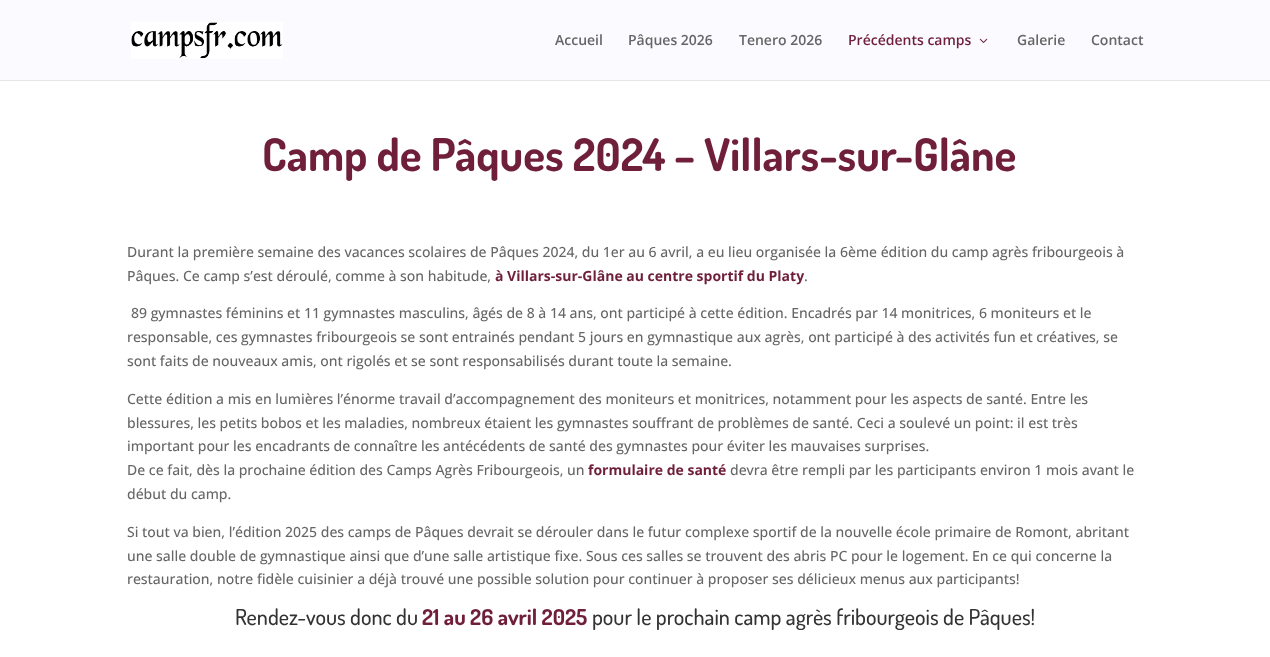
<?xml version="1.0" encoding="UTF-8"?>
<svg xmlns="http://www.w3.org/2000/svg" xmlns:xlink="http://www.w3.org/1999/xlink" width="1270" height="657">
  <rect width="100%" height="100%" fill="#ffffff" />
  <rect y="80" width="1270" height="1" fill="#e6e6e6" />
  <rect width="1270" height="80" fill="#fbfbff" />
  <image x="131" y="22" width="152" height="37" xlink:href="image1.png" />
  <image x="979" y="38" width="9" height="5" xlink:href="image2.png" />
  <text x="555" y="45" style="font-family: Open Sans; font-size: 14px; font-weight: 600; fill: #666666">Accueil</text>
  <text x="628" y="45" style="font-family: Open Sans; font-size: 14px; font-weight: 600; fill: #666666">Pâques 2026</text>
  <text x="739" y="45" style="font-family: Open Sans; font-size: 14px; font-weight: 600; fill: #666666">Tenero 2026</text>
  <text x="848" y="45" style="font-family: Open Sans; font-size: 14px; font-weight: 600; fill: #6f1f3a">Précédents camps</text>
  <text x="1017" y="45" style="font-family: Open Sans; font-size: 14px; font-weight: 600; fill: #666666">Galerie</text>
  <text x="1091" y="45" style="font-family: Open Sans; font-size: 14px; font-weight: 600; fill: #666666">Contact</text>
  <text x="262" y="171" style="font-family: Dosis; font-size: 45px; font-weight: bold; fill: #6f1f3a">Camp de Pâques 2024 – Villars-sur-Glâne</text>
  <text x="127" y="257" style="font-family: Open Sans; font-size: 14px; font-weight: 500; fill: #666666">Durant la première semaine des vacances scolaires de Pâques 2024, du 1er au 6 avril, a eu lieu organisée la 6ème édition du camp agrès fribourgeois à</text>
  <text x="127" y="281" style="font-family: Open Sans; font-size: 14px; font-weight: 500; fill: #666666">Pâques. Ce camp s’est déroulé, comme à son habitude,</text>
  <text x="495" y="281" style="font-family: Open Sans; font-size: 14px; font-weight: bold; fill: #6f1f3a">à Villars-sur-Glâne au centre sportif du Platy</text>
  <text x="804" y="281" style="font-family: Open Sans; font-size: 14px; font-weight: 500; fill: #666666">.</text>
  <text x="131" y="318" style="font-family: Open Sans; font-size: 14px; font-weight: 500; fill: #666666">89 gymnastes féminins et 11 gymnastes masculins, âgés de 8 à 14 ans, ont participé à cette édition. Encadrés par 14 monitrices, 6 moniteurs et le</text>
  <text x="127" y="342" style="font-family: Open Sans; font-size: 14px; font-weight: 500; fill: #666666">responsable, ces gymnastes fribourgeois se sont entrainés pendant 5 jours en gymnastique aux agrès, ont participé à des activités fun et créatives, se</text>
  <text x="127" y="366" style="font-family: Open Sans; font-size: 14px; font-weight: 500; fill: #666666">sont faits de nouveaux amis, ont rigolés et se sont responsabilisés durant toute la semaine.</text>
  <text x="127" y="404" style="font-family: Open Sans; font-size: 14px; font-weight: 500; fill: #666666">Cette édition a mis en lumières l’énorme travail d’accompagnement des moniteurs et monitrices, notamment pour les aspects de santé. Entre les</text>
  <text x="127" y="428" style="font-family: Open Sans; font-size: 14px; font-weight: 500; fill: #666666">blessures, les petits bobos et les maladies, nombreux étaient les gymnastes souffrant de problèmes de santé. Ceci a soulevé un point: il est très</text>
  <text x="127" y="451" style="font-family: Open Sans; font-size: 14px; font-weight: 500; fill: #666666">important pour les encadrants de connaître les antécédents de santé des gymnastes pour éviter les mauvaises surprises.</text>
  <text x="127" y="475" style="font-family: Open Sans; font-size: 14px; font-weight: 500; fill: #666666">De ce fait, dès la prochaine édition des Camps Agrès Fribourgeois, un</text>
  <text x="588" y="475" style="font-family: Open Sans; font-size: 14px; font-weight: bold; fill: #6f1f3a">formulaire de santé</text>
  <text x="730" y="475" style="font-family: Open Sans; font-size: 14px; font-weight: 500; fill: #666666">devra être rempli par les participants environ 1 mois avant le</text>
  <text x="127" y="499" style="font-family: Open Sans; font-size: 14px; font-weight: 500; fill: #666666">début du camp.</text>
  <text x="127" y="537" style="font-family: Open Sans; font-size: 14px; font-weight: 500; fill: #666666">Si tout va bien, l’édition 2025 des camps de Pâques devrait se dérouler dans le futur complexe sportif de la nouvelle école primaire de Romont, abritant</text>
  <text x="127" y="561" style="font-family: Open Sans; font-size: 14px; font-weight: 500; fill: #666666">une salle double de gymnastique ainsi que d’une salle artistique fixe. Sous ces salles se trouvent des abris PC pour le logement. En ce qui concerne la</text>
  <text x="127" y="584" style="font-family: Open Sans; font-size: 14px; font-weight: 500; fill: #666666">restauration, notre fidèle cuisinier a déjà trouvé une possible solution pour continuer à proposer ses délicieux menus aux participants!</text>
  <text x="235" y="625" style="font-family: Dosis; font-size: 22px; font-weight: 500; fill: #333333">Rendez-vous donc du</text>
  <text x="422" y="625" style="font-family: Dosis; font-size: 22px; font-weight: bold; fill: #6f1f3a">21 au 26 avril 2025</text>
  <text x="592" y="625" style="font-family: Dosis; font-size: 22px; font-weight: 500; fill: #333333">pour le prochain camp agrès fribourgeois de Pâques!</text>
</svg>
